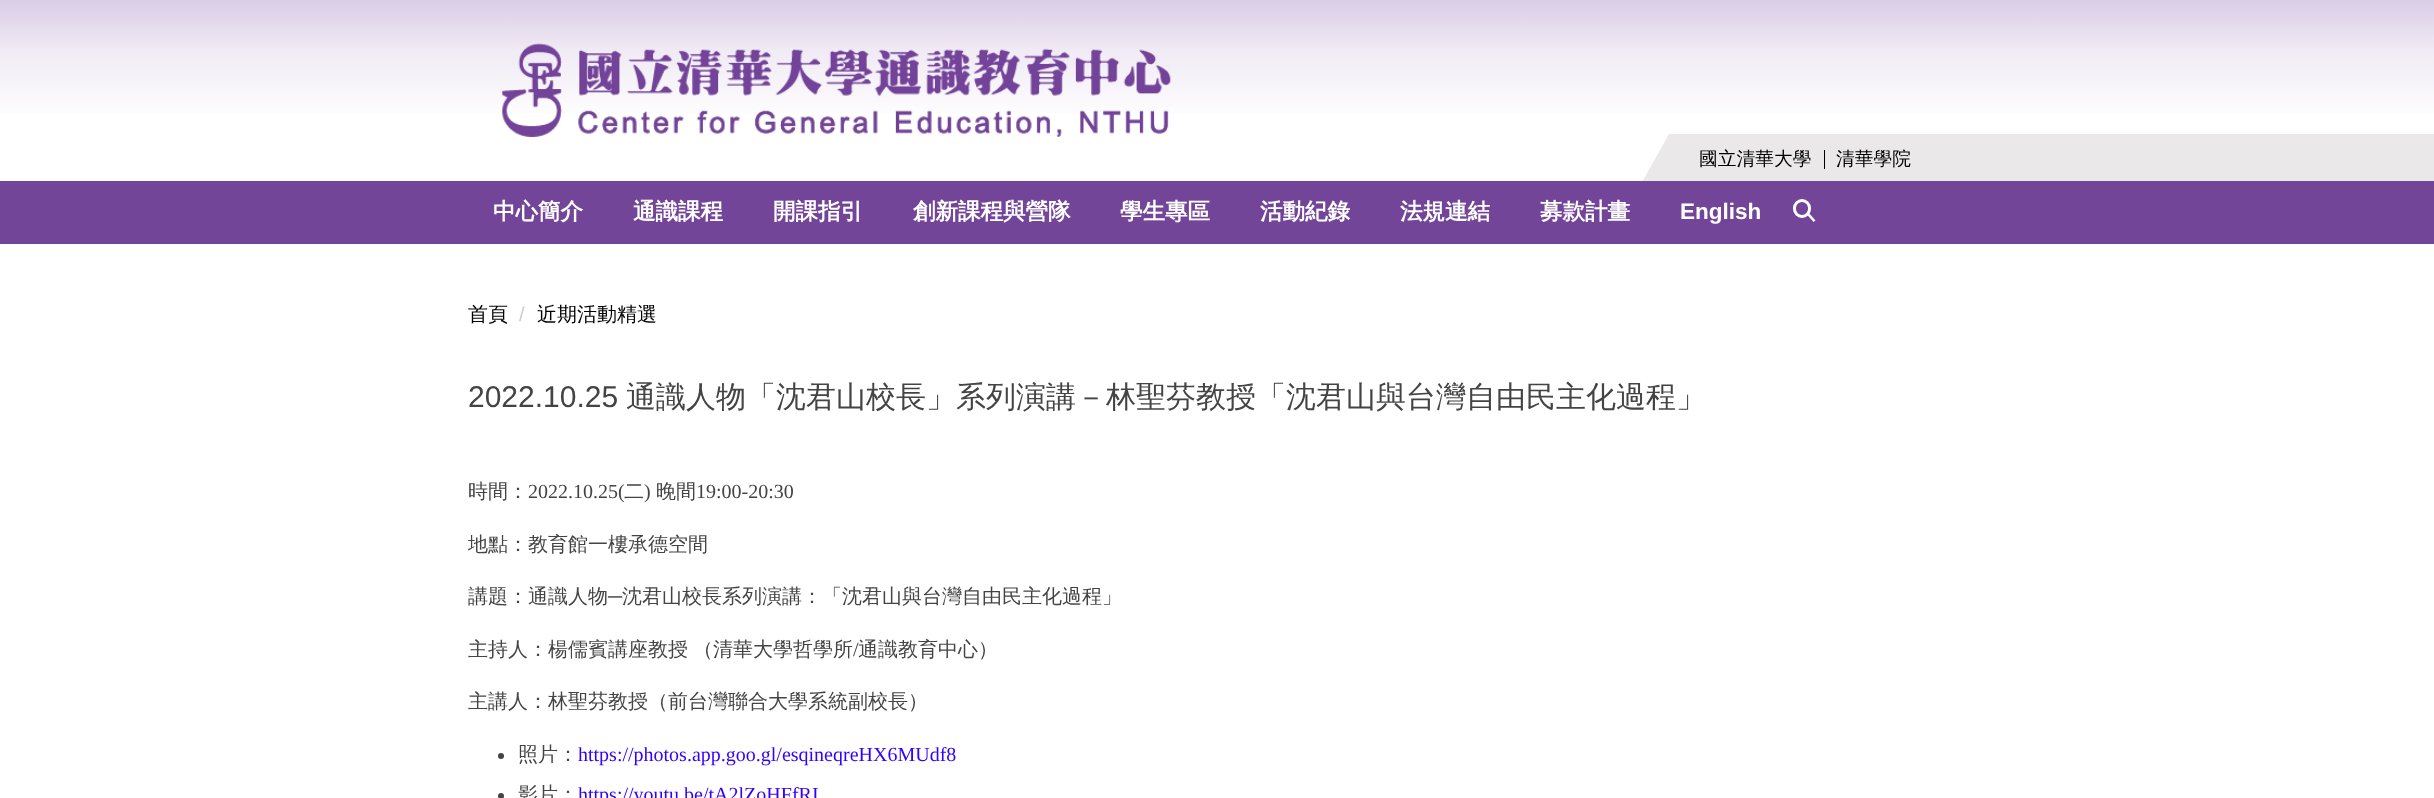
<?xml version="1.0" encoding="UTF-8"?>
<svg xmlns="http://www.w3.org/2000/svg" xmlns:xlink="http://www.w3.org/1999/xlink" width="2434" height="798">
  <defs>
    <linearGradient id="g1" gradientUnits="userSpaceOnUse" x1="1218" y1="0" x2="1218" y2="244"><stop offset="0" stop-color="#dacce5" /><stop offset="0.2" stop-color="#f0eaf4" /><stop offset="0.5" stop-color="#ffffff" /><stop offset="1" stop-color="#ffffff" /></linearGradient>
  </defs>
  <rect width="100%" height="100%" fill="#ffffff" />
  <rect width="2434" height="113" fill="url(#g1)" />
  <image x="502" y="43" width="669" height="94" xlink:href="image1.png" />
  <path d="M 1669 134 h 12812 l -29 50 h -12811 z" fill="#eae8e9" />
  <rect x="1824" y="150" width="1" height="19" fill="#000000" />
  <rect y="181" width="2434" height="63" fill="#724598" />
  <rect x="1794.5" y="200.5" width="15" height="16" rx="7.5" fill="none" stroke="#ffffff" stroke-width="3" />
  <path d="M 1808 212 l 7.5 8.5 l -2 1.5 l -7.5 -8.5 z" fill="#ffffff" />
  <circle cx="501" cy="756" r="3" fill="#444444" />
  <circle cx="501" cy="796" r="3" fill="#444444" />
  <text x="1699" y="165" style="font-family: WenQuanYi Zen Hei; font-size: 18.75px; font-weight: 500; fill: #000000">國立清華大學</text>
  <text x="1836" y="165" style="font-family: WenQuanYi Zen Hei; font-size: 18.75px; font-weight: 500; fill: #000000">清華學院</text>
  <text x="493" y="219" style="font-family: WenQuanYi Zen Hei; font-size: 22.5px; font-weight: bold; fill: #ffffff">中心簡介</text>
  <text x="633" y="219" style="font-family: WenQuanYi Zen Hei; font-size: 22.5px; font-weight: bold; fill: #ffffff">通識課程</text>
  <text x="773" y="219" style="font-family: WenQuanYi Zen Hei; font-size: 22.5px; font-weight: bold; fill: #ffffff">開課指引</text>
  <text x="913" y="219" style="font-family: WenQuanYi Zen Hei; font-size: 22.5px; font-weight: bold; fill: #ffffff">創新課程與營隊</text>
  <text x="1120" y="219" style="font-family: WenQuanYi Zen Hei; font-size: 22.5px; font-weight: bold; fill: #ffffff">學生專區</text>
  <text x="1260" y="219" style="font-family: WenQuanYi Zen Hei; font-size: 22.5px; font-weight: bold; fill: #ffffff">活動紀錄</text>
  <text x="1400" y="219" style="font-family: WenQuanYi Zen Hei; font-size: 22.5px; font-weight: bold; fill: #ffffff">法規連結</text>
  <text x="1540" y="219" style="font-family: WenQuanYi Zen Hei; font-size: 22.5px; font-weight: bold; fill: #ffffff">募款計畫</text>
  <text x="1680" y="219" style="font-family: Liberation Sans; font-size: 22.5px; font-weight: bold; fill: #ffffff">English</text>
  <text x="468" y="321" style="font-family: WenQuanYi Zen Hei; font-size: 20px; font-weight: 500; fill: #000000">首頁</text>
  <text x="519" y="321" style="font-family: Liberation Sans; font-size: 20px; fill: #cccccc">/</text>
  <text x="537" y="321" style="font-family: WenQuanYi Zen Hei; font-size: 20px; font-weight: 500; fill: #000000">近期活動精選</text>
  <text x="468" y="407" style="font-family: Liberation Sans; font-size: 30px; fill: #444444">2022.10.25</text>
  <text x="626" y="407" style="font-family: WenQuanYi Zen Hei; font-size: 30px; font-weight: 500; fill: #444444">通識人物「沈君山校長」系列演講－林聖芬教授「沈君山與台灣自由民主化過程」</text>
  <text x="468" y="498" style="font-family: WenQuanYi Zen Hei; font-size: 20px; font-weight: 500; fill: #444444">時間：</text>
  <text x="528" y="498" style="font-family: Liberation Serif; font-size: 20px; fill: #444444">2022.10.25(</text>
  <text x="624" y="498" style="font-family: WenQuanYi Zen Hei; font-size: 20px; font-weight: 500; fill: #444444">二</text>
  <text x="644" y="498" style="font-family: Liberation Serif; font-size: 20px; fill: #444444">)</text>
  <text x="656" y="498" style="font-family: WenQuanYi Zen Hei; font-size: 20px; font-weight: 500; fill: #444444">晚間</text>
  <text x="696" y="498" style="font-family: Liberation Serif; font-size: 20px; fill: #444444">19:00-20:30</text>
  <text x="468" y="551" style="font-family: WenQuanYi Zen Hei; font-size: 20px; font-weight: 500; fill: #444444">地點：教育館一樓承德空間</text>
  <text x="468" y="603" style="font-family: WenQuanYi Zen Hei; font-size: 20px; font-weight: 500; fill: #444444">講題：通識人物</text>
  <text x="608" y="603" style="font-family: Liberation Serif; font-size: 20px; fill: #444444">─</text>
  <text x="622" y="603" style="font-family: WenQuanYi Zen Hei; font-size: 20px; font-weight: 500; fill: #444444">沈君山校長系列演講：「沈君山與台灣自由民主化過程」</text>
  <text x="468" y="656" word-spacing="-1" style="font-family: WenQuanYi Zen Hei; font-size: 20px; font-weight: 500; fill: #444444">主持人：楊儒賓講座教授 （清華大學哲學所</text>
  <text x="853" y="656" style="font-family: Liberation Serif; font-size: 20px; fill: #444444">/</text>
  <text x="858" y="656" style="font-family: WenQuanYi Zen Hei; font-size: 20px; font-weight: 500; fill: #444444">通識教育中心）</text>
  <text x="468" y="708" style="font-family: WenQuanYi Zen Hei; font-size: 20px; font-weight: 500; fill: #444444">主講人：林聖芬教授（前台灣聯合大學系統副校長）</text>
  <text x="518" y="761" style="font-family: WenQuanYi Zen Hei; font-size: 20px; font-weight: 500; fill: #444444">照片：</text>
  <text x="578" y="761" style="font-family: Liberation Serif; font-size: 20px; fill: #3300ff">https://photos.app.goo.gl/esqineqreHX6MUdf8</text>
  <text x="518" y="801" style="font-family: WenQuanYi Zen Hei; font-size: 20px; font-weight: 500; fill: #444444">影片：</text>
  <text x="578" y="801" style="font-family: Liberation Serif; font-size: 20px; fill: #3300ff">https://youtu.be/tA2lZoHFfRI</text>
</svg>
